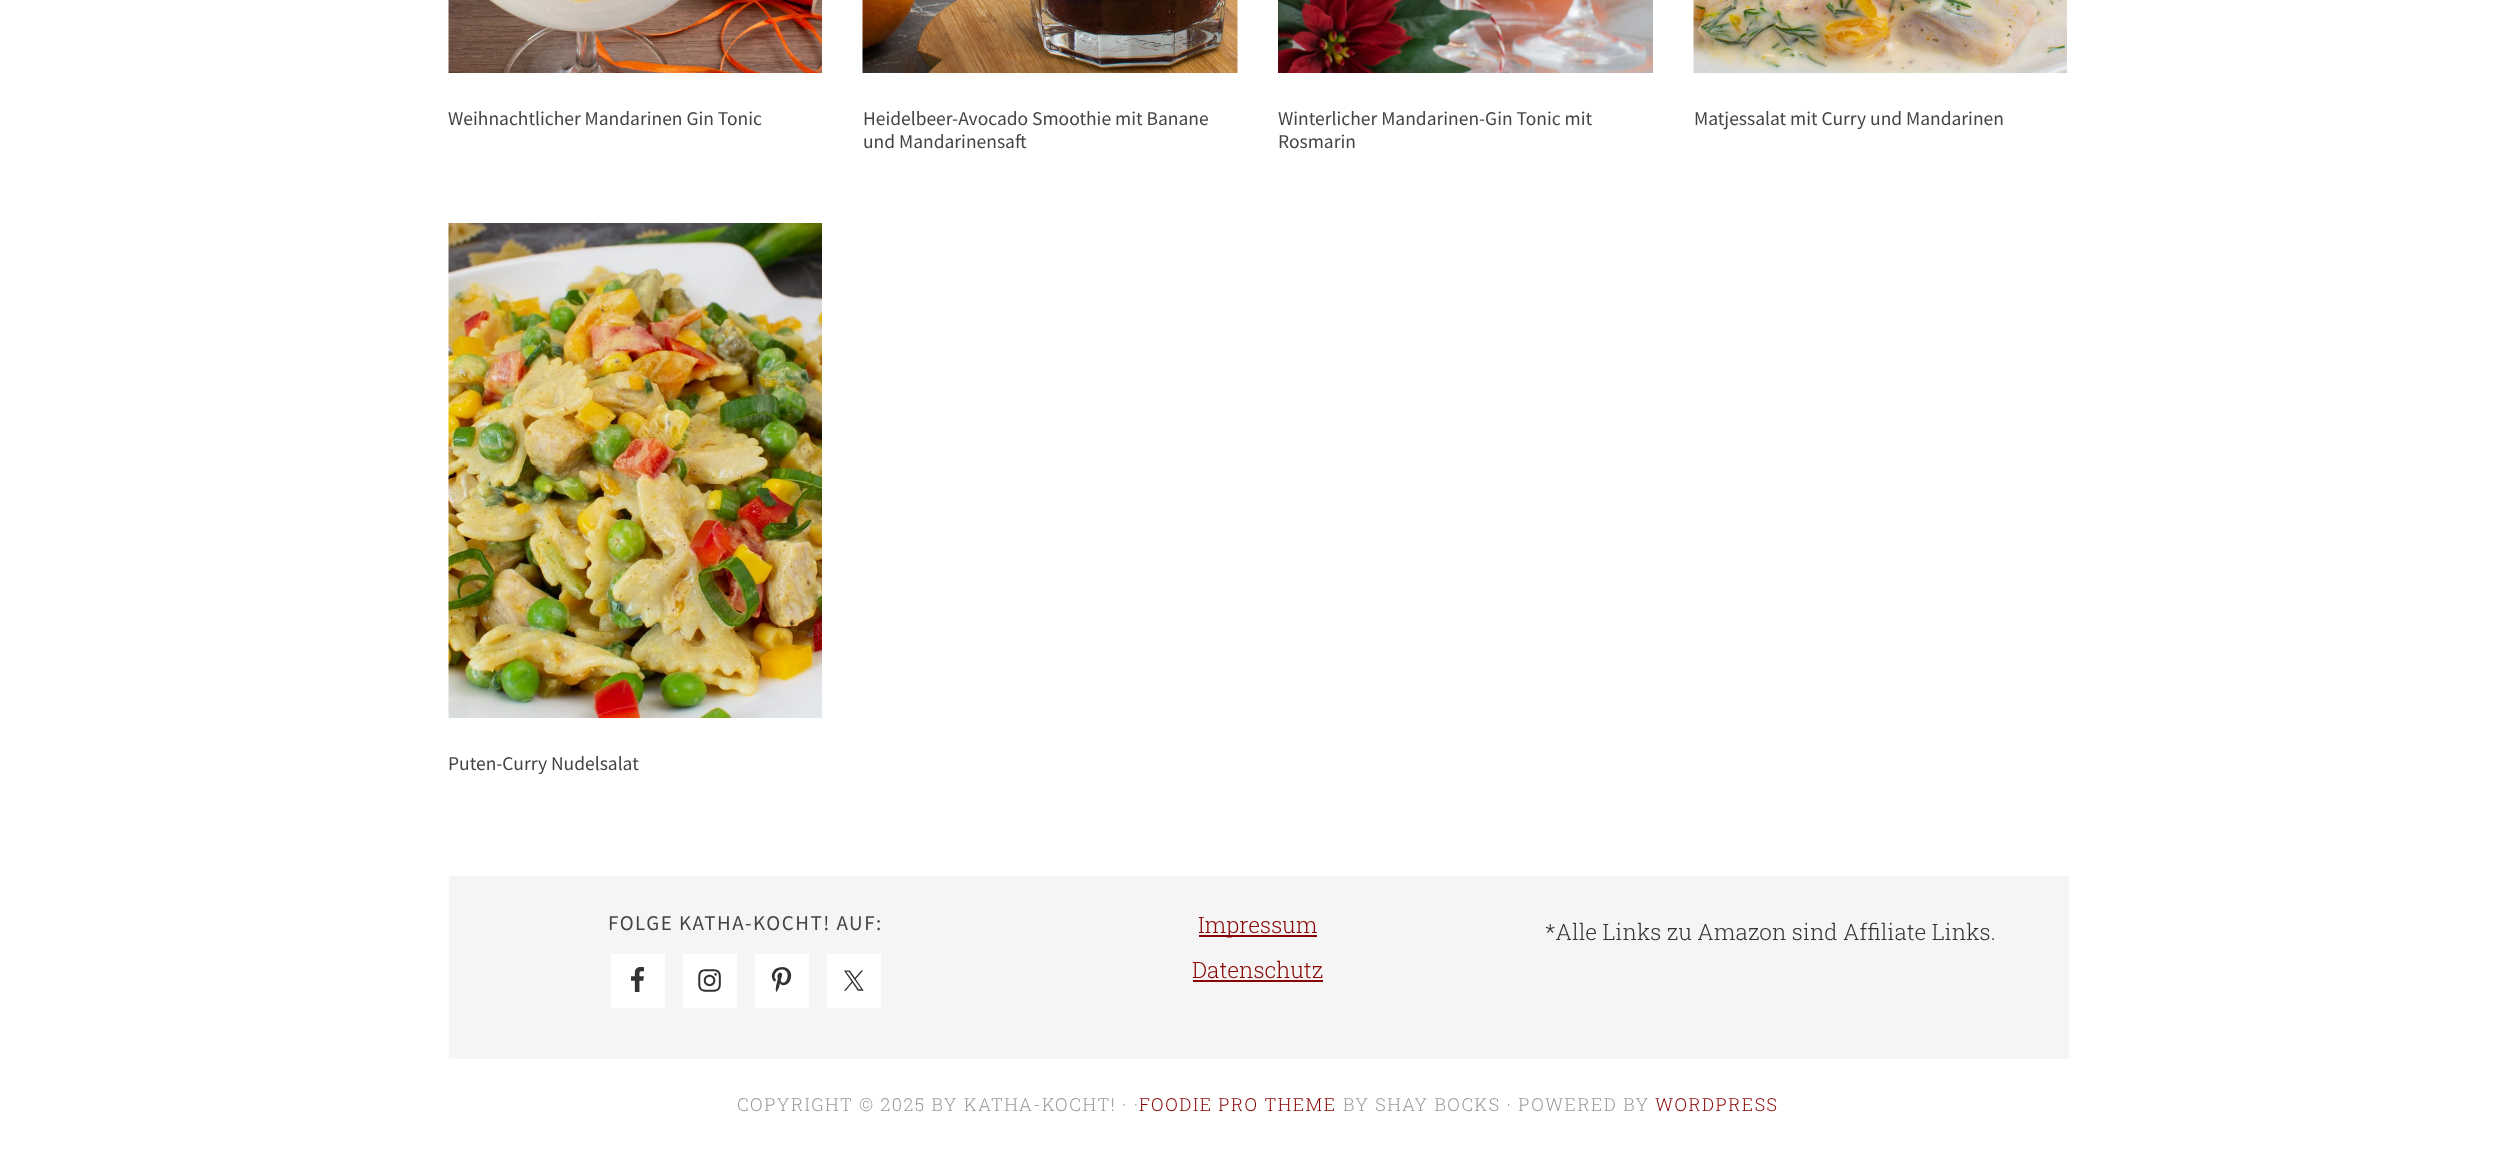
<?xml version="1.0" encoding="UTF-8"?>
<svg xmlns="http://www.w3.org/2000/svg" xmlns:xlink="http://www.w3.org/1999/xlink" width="2515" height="1149">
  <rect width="100%" height="100%" fill="#ffffff" />
  <image x="448" y="0" width="374" height="73" xlink:href="image1.png" />
  <image x="862" y="0" width="376" height="73" xlink:href="image2.png" />
  <image x="1278" y="0" width="375" height="73" xlink:href="image3.png" />
  <image x="1693" y="0" width="374" height="73" xlink:href="image4.png" />
  <image x="448" y="223" width="374" height="495" xlink:href="image5.png" />
  <rect x="449" y="876" width="1620" height="183" fill="#f5f5f5" />
  <rect x="611" y="954" width="54" height="54" fill="#ffffff" />
  <image x="631" y="967" width="13" height="25" xlink:href="image6.png" />
  <rect x="683" y="954" width="54" height="54" fill="#ffffff" />
  <image x="698" y="969" width="23" height="23" xlink:href="image7.png" />
  <rect x="755" y="954" width="54" height="54" fill="#ffffff" />
  <image x="771" y="967" width="21" height="25" xlink:href="image8.png" />
  <rect x="827" y="954" width="54" height="54" fill="#ffffff" />
  <image x="844" y="970" width="20" height="21" xlink:href="image9.png" />
  <rect x="1199" y="935" width="118" height="2" fill="#890404" />
  <rect x="1193" y="980" width="130" height="2" fill="#890404" />
  <text x="448" y="125" style="font-family: Source Sans Pro; font-size: 19.5px; fill: #444444">Weihnachtlicher Mandarinen Gin Tonic</text>
  <text x="863" y="125" style="font-family: Source Sans Pro; font-size: 19.5px; fill: #444444">Heidelbeer-Avocado Smoothie mit Banane</text>
  <text x="863" y="148" style="font-family: Source Sans Pro; font-size: 19.5px; fill: #444444">und Mandarinensaft</text>
  <text x="1278" y="125" style="font-family: Source Sans Pro; font-size: 19.5px; fill: #444444">Winterlicher Mandarinen-Gin Tonic mit</text>
  <text x="1278" y="148" style="font-family: Source Sans Pro; font-size: 19.5px; fill: #444444">Rosmarin</text>
  <text x="1694" y="125" style="font-family: Source Sans Pro; font-size: 19.5px; fill: #444444">Matjessalat mit Curry und Mandarinen</text>
  <text x="448" y="770" style="font-family: Source Sans Pro; font-size: 19.5px; fill: #444444">Puten-Curry Nudelsalat</text>
  <text x="608" y="930" style="font-family: Source Sans Pro; font-size: 21px; letter-spacing: 1.5px; fill: #444444">FOLGE KATHA-KOCHT! AUF:</text>
  <text x="1198" y="933" style="font-family: Roboto Slab; font-size: 22.5px; font-weight: 300; fill: #890404">Impressum</text>
  <text x="1192" y="978" style="font-family: Roboto Slab; font-size: 22.5px; font-weight: 300; fill: #890404">Datenschutz</text>
  <text x="1545" y="940" style="font-family: Roboto Slab; font-size: 22.5px; font-weight: 300; fill: #333333">*Alle Links zu Amazon sind Affiliate Links.</text>
  <text x="737" y="1111" style="font-family: Roboto Slab; font-size: 18px; font-weight: 300; letter-spacing: 1.5px; fill: #999999">COPYRIGHT © 2025 BY KATHA-KOCHT! · ·</text>
  <text x="1139" y="1111" style="font-family: Roboto Slab; font-size: 18px; font-weight: 300; letter-spacing: 1.5px; fill: #890404">FOODIE PRO THEME</text>
  <text x="1343" y="1111" style="font-family: Roboto Slab; font-size: 18px; font-weight: 300; letter-spacing: 1.5px; fill: #999999">BY SHAY BOCKS · POWERED BY</text>
  <text x="1655" y="1111" style="font-family: Roboto Slab; font-size: 18px; font-weight: 300; letter-spacing: 1.5px; fill: #890404">WORDPRESS</text>
</svg>
